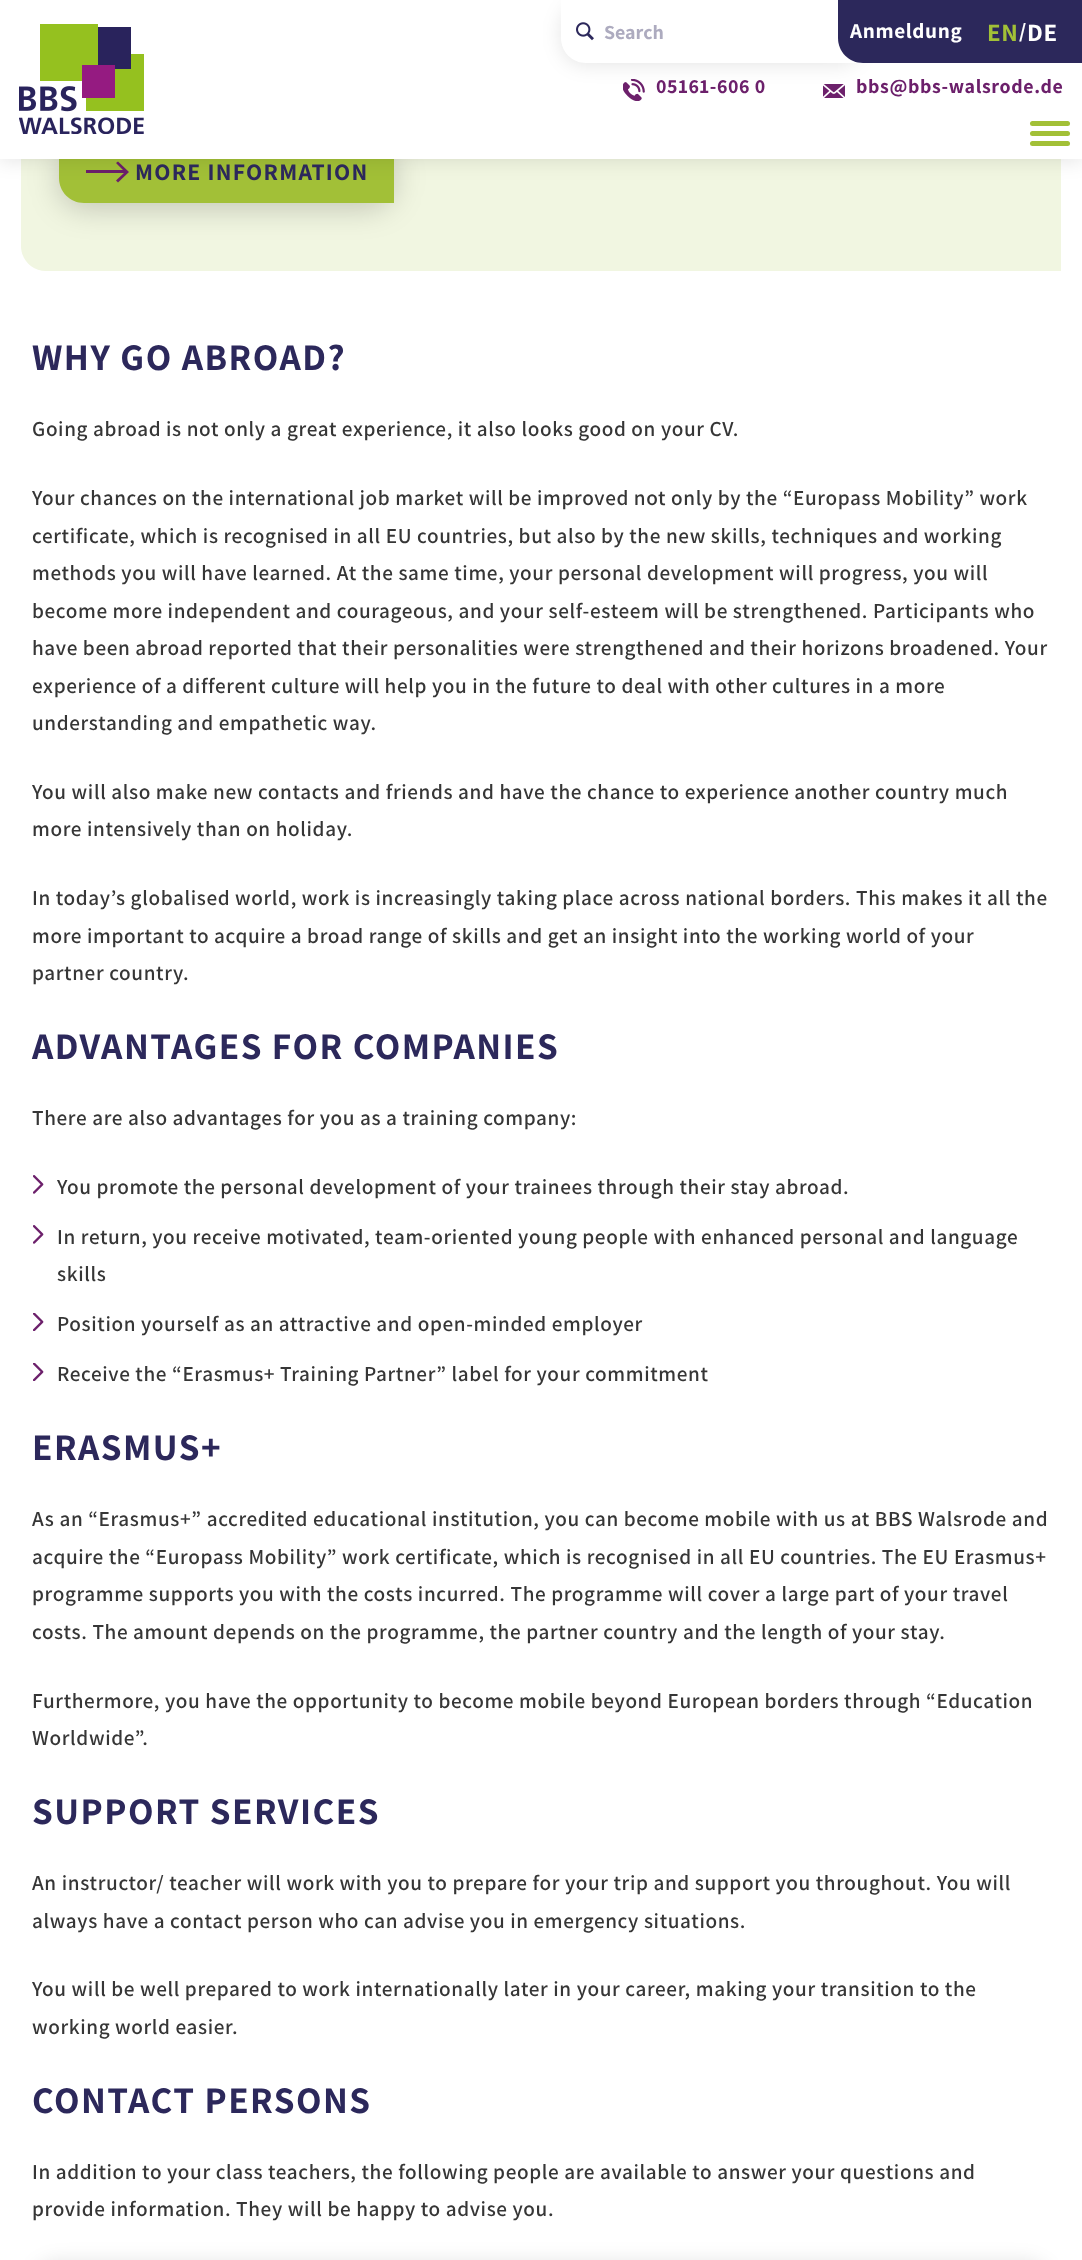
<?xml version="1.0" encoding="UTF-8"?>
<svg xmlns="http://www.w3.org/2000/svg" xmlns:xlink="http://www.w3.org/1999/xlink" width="1082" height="2260">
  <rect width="100%" height="100%" fill="#ffffff" />
  <path d="M 21 -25 h 1040 v 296 h -1015 c -14 0 -25 -11 -25 -25 z" fill="#f1f6e1" />
  <rect x="59" y="146" width="335" height="62" rx="25" fill="#000000" fill-opacity="0.2" filter="blur(15.5px)" />
  <path d="M 59 141 h 335 v 62 h -310 c -14 0 -25 -11 -25 -25 z" fill="#a2c037" />
  <path d="M 129 172 l -11 10.5 l -2 -2 l 9 -8.5 l -9 -9 l 2 -1.5 z" fill="#6c206b" />
  <rect x="86" y="170" width="41" height="3" fill="#6c206b" />
  <rect y="3" width="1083" height="158" fill="#000000" fill-opacity="0.1" filter="blur(9.5px)" />
  <rect width="1082" height="159" fill="#ffffff" />
  <image x="19" y="24" width="125" height="110" xlink:href="image1.png" />
  <rect x="561" y="3" width="302" height="62" rx="25" fill="#000000" fill-opacity="0.1" filter="blur(9.5px)" />
  <path d="M 561 0 h 302 v 63 h -277 c -14 0 -25 -11 -25 -25 z" fill="#ffffff" />
  <image x="576" y="22" width="18" height="19" xlink:href="image2.png" />
  <path d="M 838 0 h 137 v 63 h -112 c -14 0 -25 -11 -25 -25 z" fill="#2c285b" />
  <rect x="975" width="107" height="63" fill="#2c285b" />
  <image x="623" y="79" width="22" height="22" xlink:href="image3.png" />
  <image x="823" y="84" width="22" height="14" xlink:href="image4.png" />
  <rect x="1030" y="121" width="40" height="5" rx="2.5" fill="#a2c037" />
  <rect x="1030" y="131" width="40" height="5" rx="2.5" fill="#a2c037" />
  <rect x="1030" y="141" width="40" height="5" rx="2.5" fill="#a2c037" />
  <image x="33" y="1175" width="11" height="19" xlink:href="image5.png" />
  <image x="33" y="1225" width="11" height="19" xlink:href="image5.png" />
  <image x="33" y="1313" width="11" height="18" xlink:href="image6.png" />
  <image x="33" y="1363" width="11" height="18" xlink:href="image6.png" />
  <rect x="33" y="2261" width="1017" height="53" rx="25" fill="#000000" fill-opacity="0.1" filter="blur(9.5px)" />
  <text x="604" y="39" style="font-family: Assistant; font-size: 20px; font-weight: 200; fill: #adabbf">Search</text>
  <text x="850" y="38" style="font-family: Assistant; font-size: 21.25px; font-weight: 200; letter-spacing: 0.64px; fill: #ffffff">Anmeldung</text>
  <text x="987" y="41" style="font-family: Assistant; font-size: 25px; font-weight: 200; letter-spacing: 0.64px; fill: #a2c037">EN</text>
  <text x="1019" y="38" style="font-family: Assistant; font-size: 21.25px; font-weight: 200; letter-spacing: 0.64px; fill: #ffffff">/</text>
  <text x="1027" y="41" style="font-family: Assistant; font-size: 25px; font-weight: 200; letter-spacing: 0.64px; fill: #ffffff">DE</text>
  <text x="656" y="93" style="font-family: Assistant; font-size: 20px; font-weight: 200; letter-spacing: 0.64px; fill: #6c206b">05161-606 0</text>
  <text x="856" y="93" style="font-family: Assistant; font-size: 20px; font-weight: 200; letter-spacing: 0.64px; fill: #6c206b">bbs@bbs-walsrode.de</text>
  <text x="135" y="180" style="font-family: Assistant; font-size: 23.75px; font-weight: 200; letter-spacing: 1.25px; fill: #2c285b">MORE INFORMATION</text>
  <text x="32" y="370" style="font-family: Assistant; font-size: 37.5px; font-weight: 200; letter-spacing: 1.5px; fill: #2c285b">WHY GO ABROAD?</text>
  <text x="32" y="436" style="font-family: 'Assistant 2'; font-size: 21.25px; font-weight: 200; letter-spacing: 0.64px; fill: #363636">Going abroad is not only a great experience, it also looks good on your CV.</text>
  <text x="32" y="505" style="font-family: 'Assistant 2'; font-size: 21.25px; font-weight: 200; letter-spacing: 0.64px; fill: #363636">Your chances on the international job market will be improved not only by the “Europass Mobility” work</text>
  <text x="32" y="543" style="font-family: 'Assistant 2'; font-size: 21.25px; font-weight: 200; letter-spacing: 0.64px; fill: #363636">certificate, which is recognised in all EU countries, but also by the new skills, techniques and working</text>
  <text x="32" y="580" style="font-family: 'Assistant 2'; font-size: 21.25px; font-weight: 200; letter-spacing: 0.64px; fill: #363636">methods you will have learned. At the same time, your personal development will progress, you will</text>
  <text x="32" y="618" style="font-family: 'Assistant 2'; font-size: 21.25px; font-weight: 200; letter-spacing: 0.64px; fill: #363636">become more independent and courageous, and your self-esteem will be strengthened. Participants who</text>
  <text x="32" y="655" style="font-family: 'Assistant 2'; font-size: 21.25px; font-weight: 200; letter-spacing: 0.64px; fill: #363636">have been abroad reported that their personalities were strengthened and their horizons broadened. Your</text>
  <text x="32" y="693" style="font-family: 'Assistant 2'; font-size: 21.25px; font-weight: 200; letter-spacing: 0.64px; fill: #363636">experience of a different culture will help you in the future to deal with other cultures in a more</text>
  <text x="32" y="730" style="font-family: 'Assistant 2'; font-size: 21.25px; font-weight: 200; letter-spacing: 0.64px; fill: #363636">understanding and empathetic way.</text>
  <text x="32" y="799" style="font-family: 'Assistant 2'; font-size: 21.25px; font-weight: 200; letter-spacing: 0.64px; fill: #363636">You will also make new contacts and friends and have the chance to experience another country much</text>
  <text x="32" y="836" style="font-family: 'Assistant 2'; font-size: 21.25px; font-weight: 200; letter-spacing: 0.64px; fill: #363636">more intensively than on holiday.</text>
  <text x="32" y="905" style="font-family: 'Assistant 2'; font-size: 21.25px; font-weight: 200; letter-spacing: 0.64px; fill: #363636">In today’s globalised world, work is increasingly taking place across national borders. This makes it all the</text>
  <text x="32" y="943" style="font-family: 'Assistant 2'; font-size: 21.25px; font-weight: 200; letter-spacing: 0.64px; fill: #363636">more important to acquire a broad range of skills and get an insight into the working world of your</text>
  <text x="32" y="980" style="font-family: 'Assistant 2'; font-size: 21.25px; font-weight: 200; letter-spacing: 0.64px; fill: #363636">partner country.</text>
  <text x="32" y="1059" style="font-family: Assistant; font-size: 37.5px; font-weight: 200; letter-spacing: 1.5px; fill: #2c285b">ADVANTAGES FOR COMPANIES</text>
  <text x="32" y="1125" style="font-family: 'Assistant 2'; font-size: 21.25px; font-weight: 200; letter-spacing: 0.64px; fill: #363636">There are also advantages for you as a training company:</text>
  <text x="57" y="1194" style="font-family: 'Assistant 2'; font-size: 21.25px; font-weight: 200; letter-spacing: 0.64px; fill: #363636">You promote the personal development of your trainees through their stay abroad.</text>
  <text x="57" y="1244" style="font-family: 'Assistant 2'; font-size: 21.25px; font-weight: 200; letter-spacing: 0.64px; fill: #363636">In return, you receive motivated, team-oriented young people with enhanced personal and language</text>
  <text x="57" y="1281" style="font-family: 'Assistant 2'; font-size: 21.25px; font-weight: 200; letter-spacing: 0.64px; fill: #363636">skills</text>
  <text x="57" y="1331" style="font-family: 'Assistant 2'; font-size: 21.25px; font-weight: 200; letter-spacing: 0.64px; fill: #363636">Position yourself as an attractive and open-minded employer</text>
  <text x="57" y="1381" style="font-family: 'Assistant 2'; font-size: 21.25px; font-weight: 200; letter-spacing: 0.64px; fill: #363636">Receive the “Erasmus+ Training Partner” label for your commitment</text>
  <text x="32" y="1460" style="font-family: Assistant; font-size: 37.5px; font-weight: 200; letter-spacing: 1.5px; fill: #2c285b">ERASMUS+</text>
  <text x="32" y="1526" style="font-family: 'Assistant 2'; font-size: 21.25px; font-weight: 200; letter-spacing: 0.64px; fill: #363636">As an “Erasmus+” accredited educational institution, you can become mobile with us at BBS Walsrode and</text>
  <text x="32" y="1564" style="font-family: 'Assistant 2'; font-size: 21.25px; font-weight: 200; letter-spacing: 0.64px; fill: #363636">acquire the “Europass Mobility” work certificate, which is recognised in all EU countries. The EU Erasmus+</text>
  <text x="32" y="1601" style="font-family: 'Assistant 2'; font-size: 21.25px; font-weight: 200; letter-spacing: 0.64px; fill: #363636">programme supports you with the costs incurred. The programme will cover a large part of your travel</text>
  <text x="32" y="1639" style="font-family: 'Assistant 2'; font-size: 21.25px; font-weight: 200; letter-spacing: 0.64px; fill: #363636">costs. The amount depends on the programme, the partner country and the length of your stay.</text>
  <text x="32" y="1708" style="font-family: 'Assistant 2'; font-size: 21.25px; font-weight: 200; letter-spacing: 0.64px; fill: #363636">Furthermore, you have the opportunity to become mobile beyond European borders through “Education</text>
  <text x="32" y="1745" style="font-family: 'Assistant 2'; font-size: 21.25px; font-weight: 200; letter-spacing: 0.64px; fill: #363636">Worldwide”.</text>
  <text x="32" y="1824" style="font-family: Assistant; font-size: 37.5px; font-weight: 200; letter-spacing: 1.5px; fill: #2c285b">SUPPORT SERVICES</text>
  <text x="32" y="1890" style="font-family: 'Assistant 2'; font-size: 21.25px; font-weight: 200; letter-spacing: 0.64px; fill: #363636">An instructor/ teacher will work with you to prepare for your trip and support you throughout. You will</text>
  <text x="32" y="1928" style="font-family: 'Assistant 2'; font-size: 21.25px; font-weight: 200; letter-spacing: 0.64px; fill: #363636">always have a contact person who can advise you in emergency situations.</text>
  <text x="32" y="1996" style="font-family: 'Assistant 2'; font-size: 21.25px; font-weight: 200; letter-spacing: 0.64px; fill: #363636">You will be well prepared to work internationally later in your career, making your transition to the</text>
  <text x="32" y="2034" style="font-family: 'Assistant 2'; font-size: 21.25px; font-weight: 200; letter-spacing: 0.64px; fill: #363636">working world easier.</text>
  <text x="32" y="2113" style="font-family: Assistant; font-size: 37.5px; font-weight: 200; letter-spacing: 1.5px; fill: #2c285b">CONTACT PERSONS</text>
  <text x="32" y="2179" style="font-family: 'Assistant 2'; font-size: 21.25px; font-weight: 200; letter-spacing: 0.64px; fill: #363636">In addition to your class teachers, the following people are available to answer your questions and</text>
  <text x="32" y="2216" style="font-family: 'Assistant 2'; font-size: 21.25px; font-weight: 200; letter-spacing: 0.64px; fill: #363636">provide information. They will be happy to advise you.</text>
</svg>
